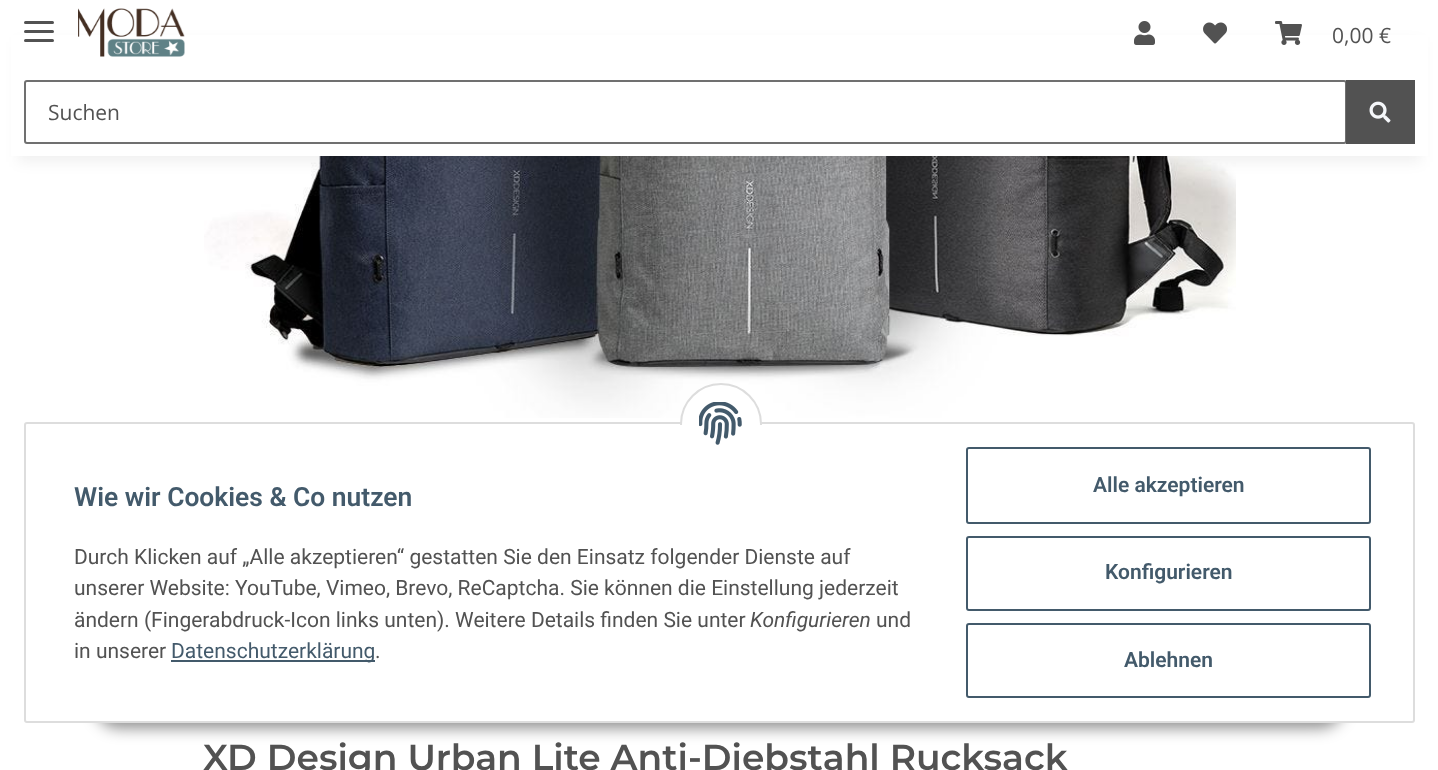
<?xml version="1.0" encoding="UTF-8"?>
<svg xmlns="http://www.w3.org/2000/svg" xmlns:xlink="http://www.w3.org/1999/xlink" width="1438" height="770">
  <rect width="100%" height="100%" fill="#ffffff" />
  <image x="204" y="156" width="1032" height="262" xlink:href="image7.png" />
  <rect x="18" y="42" width="1403" height="120" fill="#000000" fill-opacity="0.06" filter="blur(7px)" />
  <rect x="11" y="35" width="1417" height="121" fill="#ffffff" />
  <rect x="24" y="30" width="30" height="3" rx="1.5" fill="#525252" />
  <rect x="24" y="21" width="30" height="3" rx="1.5" fill="#525252" />
  <rect x="24" y="39" width="30" height="3" rx="1.5" fill="#525252" />
  <image x="78" y="8" width="107" height="49" xlink:href="image1.png" />
  <image x="1134" y="21" width="21" height="24" xlink:href="image2.png" />
  <image x="1203" y="22" width="24" height="22" xlink:href="image3.png" />
  <image x="1275" y="21" width="27" height="24" xlink:href="image4.png" />
  <rect x="25" y="81" width="1321" height="62" rx="2" fill="none" stroke="#707070" stroke-width="2" />
  <rect x="1346" y="80" width="69" height="64" fill="#525252" />
  <image x="1369" y="101" width="22" height="22" xlink:href="image5.png" />
  <rect x="95" y="680" width="1249" height="48" rx="24" fill="#000000" fill-opacity="0.45" filter="blur(7.5px)" />
  <rect x="25" y="423" width="1389" height="299" rx="2" fill="#ffffff" stroke="#dddddd" stroke-width="2" />
  <circle cx="721" cy="424" r="40" fill="#ffffff" stroke="#dddddd" stroke-width="2" />
  <rect x="680" y="425" width="82" height="40" fill="#ffffff" />
  <image x="699" y="402" width="43" height="43" xlink:href="image6.png" />
  <rect x="171" y="660" width="204" height="2" fill="#435a6b" />
  <rect x="967" y="448" width="403" height="75" rx="2" fill="none" stroke="#435a6b" stroke-width="2" />
  <rect x="967" y="537" width="403" height="73" rx="2" fill="none" stroke="#435a6b" stroke-width="2" />
  <rect x="967" y="624" width="403" height="73" rx="2" fill="none" stroke="#435a6b" stroke-width="2" />
  <text x="1332" y="43" style="font-family: Open Sans; font-size: 21px; fill: #525252">0,00 €</text>
  <text x="48" y="120" style="font-family: Open Sans; font-size: 21px; fill: #525252">Suchen</text>
  <text x="74" y="506" style="font-family: Roboto; font-size: 26.4px; font-weight: 600; fill: #435a6b">Wie wir Cookies &amp; Co nutzen</text>
  <text x="74" y="564" style="font-family: Roboto; font-size: 21px; fill: #525252">Durch Klicken auf „Alle akzeptieren“ gestatten Sie den Einsatz folgender Dienste auf</text>
  <text x="74" y="595" style="font-family: Roboto; font-size: 21px; fill: #525252">unserer Website: YouTube, Vimeo, Brevo, ReCaptcha. Sie können die Einstellung jederzeit</text>
  <text x="74" y="627" style="font-family: Roboto; font-size: 21px; fill: #525252">ändern (Fingerabdruck-Icon links unten). Weitere Details finden Sie unter</text>
  <text x="750" y="627" style="font-family: Roboto; font-size: 21px; font-style: italic; fill: #525252">Konfigurieren</text>
  <text x="876" y="627" style="font-family: Roboto; font-size: 21px; fill: #525252">und</text>
  <text x="74" y="658" style="font-family: Roboto; font-size: 21px; fill: #525252">in unserer</text>
  <text x="171" y="658" style="font-family: Roboto; font-size: 21px; fill: #435a6b">Datenschutzerklärung</text>
  <text x="375" y="658" style="font-family: Roboto; font-size: 21px; fill: #525252">.</text>
  <text x="1093" y="492" style="font-family: Roboto; font-size: 21px; font-weight: 600; fill: #435a6b">Alle akzeptieren</text>
  <text x="1105" y="579" style="font-family: Roboto; font-size: 21px; font-weight: 600; fill: #435a6b">Konfigurieren</text>
  <text x="1124" y="667" style="font-family: Roboto; font-size: 21px; font-weight: 600; fill: #435a6b">Ablehnen</text>
  <text x="203" y="770" style="font-family: Montserrat; font-size: 36px; font-weight: 600; fill: #525252">XD Design Urban Lite Anti-Diebstahl Rucksack</text>
</svg>
